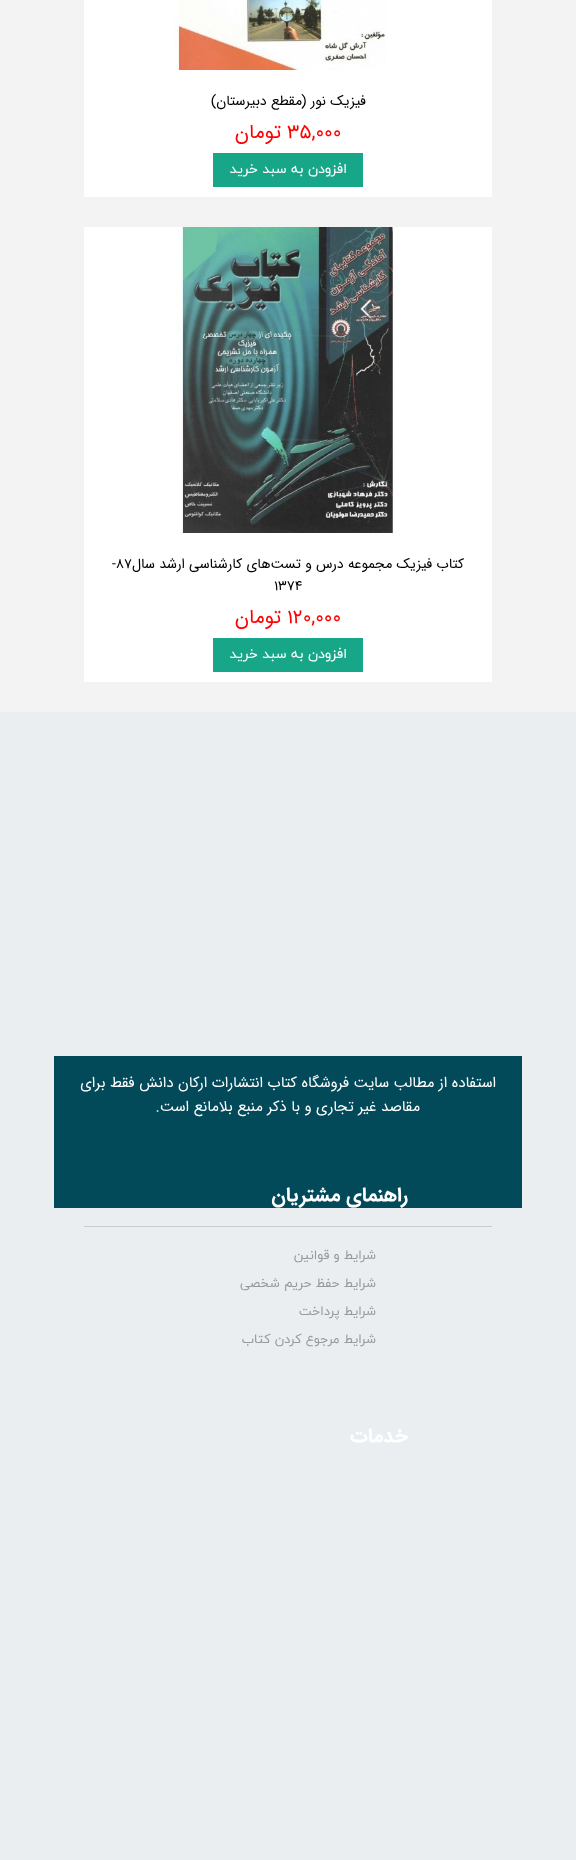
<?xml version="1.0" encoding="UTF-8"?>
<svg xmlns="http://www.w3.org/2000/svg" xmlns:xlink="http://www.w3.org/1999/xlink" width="576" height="1860">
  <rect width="100%" height="100%" fill="#f3f3f3" />
  <rect x="84" width="408" height="197" fill="#ffffff" />
  <image x="174" y="0" width="212" height="70" xlink:href="image1.png" />
  <rect x="213" y="153" width="150" height="34" fill="#18a689" />
  <rect x="84" y="227" width="408" height="455" fill="#ffffff" />
  <image x="176" y="227" width="222" height="306" xlink:href="image2.png" />
  <rect x="213" y="638" width="150" height="34" fill="#18a689" />
  <rect y="712" width="576" height="1148" fill="#ebeef0" />
  <rect x="54" y="1056" width="468" height="152" fill="#024959" />
  <rect x="84" y="1226" width="408" height="1" fill="#cccccc" />
  <text x="366" y="105" style="font-family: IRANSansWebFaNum; font-size: 14px; direction: rtl; fill: #000000">فیزیک نور (مقطع دبیرستان)</text>
  <text x="287" y="138" style="font-family: IRANSansWebFaNum; font-size: 20px; fill: #ff0000">۳۵,۰۰۰</text>
  <text x="281" y="138" style="font-family: IRANSansWebFaNum; font-size: 20px; direction: rtl; fill: #ff0000">تومان</text>
  <text x="347" y="173" style="font-family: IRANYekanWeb; font-size: 14px; direction: rtl; fill: #ffffff">افزودن به سبد خرید</text>
  <text x="464" y="568" style="font-family: IRANSansWebFaNum; font-size: 14px; direction: rtl; fill: #000000">کتاب فیزیک مجموعه درس و تست‌های کارشناسی ارشد سال</text>
  <text x="112" y="568" style="font-family: IRANSansWebFaNum; font-size: 14px; fill: #000000">-87</text>
  <text x="274" y="590" style="font-family: IRANSansWebFaNum; font-size: 14px; fill: #000000">1374</text>
  <text x="287" y="623" style="font-family: IRANSansWebFaNum; font-size: 20px; fill: #ff0000">۱۲۰,۰۰۰</text>
  <text x="281" y="623" style="font-family: IRANSansWebFaNum; font-size: 20px; direction: rtl; fill: #ff0000">تومان</text>
  <text x="347" y="658" style="font-family: IRANYekanWeb; font-size: 14px; direction: rtl; fill: #ffffff">افزودن به سبد خرید</text>
  <text x="496" y="1087" style="font-family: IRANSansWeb; font-size: 15px; direction: rtl; fill: #ffffff">استفاده از مطالب سايت فروشگاه کتاب انتشارات ارکان دانش فقط برای</text>
  <text x="420" y="1111" style="font-family: IRANSansWeb; font-size: 15px; direction: rtl; fill: #ffffff">مقاصد غیر تجاری و با ذکر منبع بلامانع است.</text>
  <text x="408" y="1201" style="font-family: IRANSansWeb; font-size: 20px; font-weight: bold; direction: rtl; fill: #ffffff">راهنمای مشتریان</text>
  <text x="376" y="1259" style="font-family: IRANYekanWeb; font-size: 13px; direction: rtl; fill: #999999">شرایط و قوانین</text>
  <text x="376" y="1287" style="font-family: IRANYekanWeb; font-size: 13px; direction: rtl; fill: #999999">شرایط حفظ حریم شخصی</text>
  <text x="376" y="1315" style="font-family: IRANYekanWeb; font-size: 13px; direction: rtl; fill: #999999">شرایط پرداخت</text>
  <text x="376" y="1343" style="font-family: IRANYekanWeb; font-size: 13px; direction: rtl; fill: #999999">شرایط مرجوع کردن کتاب</text>
  <text x="408" y="1442" style="font-family: IRANSansWeb; font-size: 20px; font-weight: bold; direction: rtl; fill: #ffffff">خدمات</text>
</svg>
